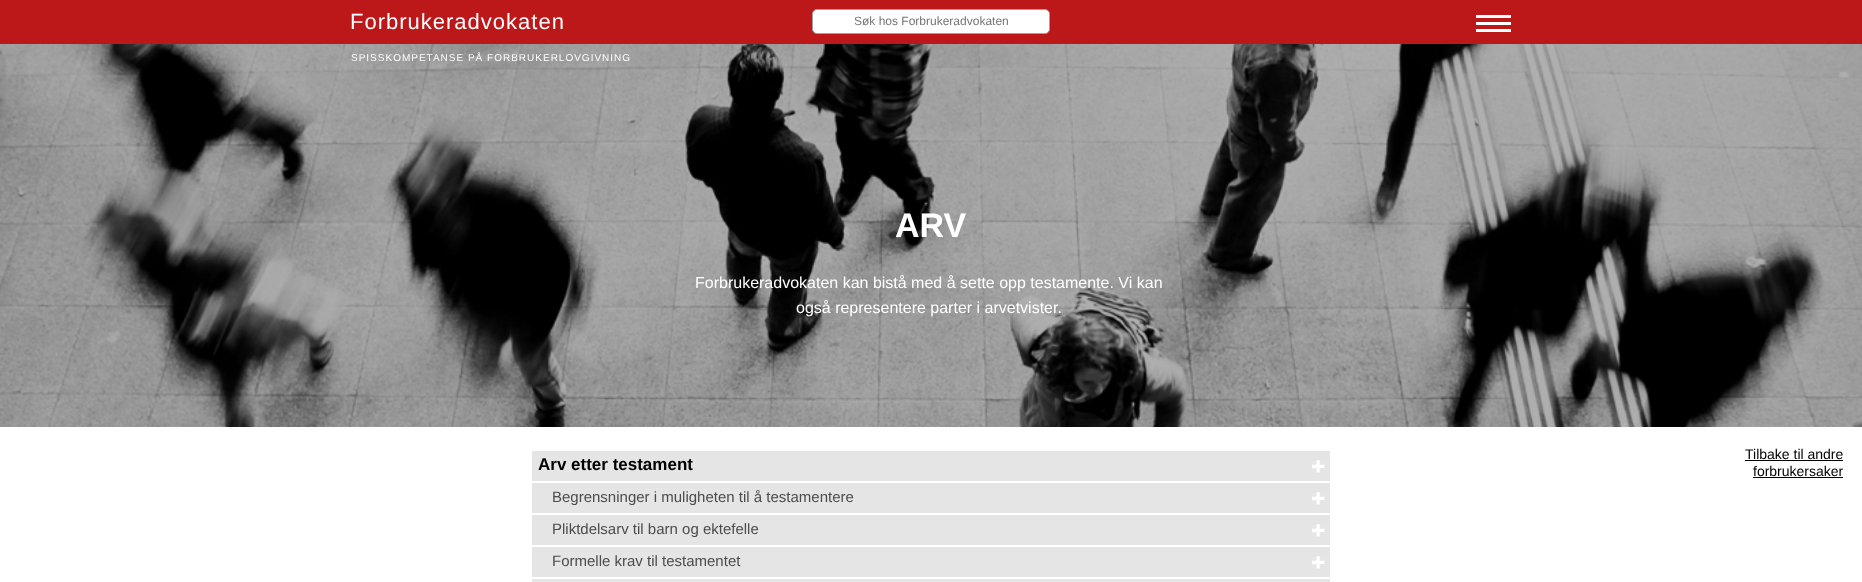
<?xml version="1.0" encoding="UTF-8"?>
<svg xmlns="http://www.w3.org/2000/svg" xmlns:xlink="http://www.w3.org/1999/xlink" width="1862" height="582">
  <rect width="100%" height="100%" fill="#ffffff" />
  <rect width="1862" height="44" fill="#bd1819" />
  <rect x="1476" y="15" width="35" height="3" fill="#ffffff" />
  <rect x="1476" y="22" width="35" height="3" fill="#ffffff" />
  <rect x="1476" y="29" width="35" height="3" fill="#ffffff" />
  <rect x="812.5" y="9.5" width="237" height="24" rx="4.5" fill="#ffffff" stroke="#a0a0a0" />
  <image x="0" y="44" width="1862" height="383" xlink:href="image1.png" />
  <rect x="532" y="451" width="798" height="30" fill="#e5e5e5" />
  <image x="1312" y="460" width="13" height="13" xlink:href="image2.png" />
  <rect x="532" y="483" width="798" height="30" fill="#e5e5e5" />
  <image x="1312" y="492" width="13" height="13" xlink:href="image2.png" />
  <rect x="532" y="515" width="798" height="30" fill="#e5e5e5" />
  <image x="1312" y="524" width="13" height="13" xlink:href="image2.png" />
  <rect x="532" y="547" width="798" height="30" fill="#e5e5e5" />
  <image x="1312" y="556" width="13" height="13" xlink:href="image2.png" />
  <rect x="531.5" y="578.5" width="799" height="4" fill="#e5e5e5" stroke="#ffffff" />
  <rect x="1745" y="460" width="98" height="1" fill="#000000" />
  <rect x="1753" y="477" width="90" height="1" fill="#000000" />
  <text x="350" y="29" style="font-family: Liberation Sans; font-size: 22px; letter-spacing: 1px; fill: #ffffff">Forbrukeradvokaten</text>
  <text x="854" y="25" style="font-family: Liberation Sans; font-size: 12px; fill: #757575">Søk hos Forbrukeradvokaten</text>
  <text x="351" y="61" style="font-family: Liberation Sans; font-size: 10px; letter-spacing: 1px; fill: #ffffff">SPISSKOMPETANSE PÅ FORBRUKERLOVGIVNING</text>
  <text x="895" y="237" style="font-family: Liberation Sans; font-size: 34px; font-weight: bold; fill: #ffffff">ARV</text>
  <text x="695" y="288" style="font-family: Liberation Sans; font-size: 16px; fill: #ffffff">Forbrukeradvokaten kan bistå med å sette opp testamente. Vi kan</text>
  <text x="796" y="313" style="font-family: Liberation Sans; font-size: 16px; fill: #ffffff">også representere parter i arvetvister.</text>
  <text x="538" y="470" style="font-family: Liberation Sans; font-size: 17px; font-weight: bold; fill: #000000">Arv etter testament</text>
  <text x="552" y="502" style="font-family: Liberation Sans; font-size: 15px; fill: #4c4c4c">Begrensninger i muligheten til å testamentere</text>
  <text x="552" y="534" style="font-family: Liberation Sans; font-size: 15px; fill: #4c4c4c">Pliktdelsarv til barn og ektefelle</text>
  <text x="552" y="566" style="font-family: Liberation Sans; font-size: 15px; fill: #4c4c4c">Formelle krav til testamentet</text>
  <text x="1745" y="459" style="font-family: Liberation Sans; font-size: 14px; fill: #000000">Tilbake til andre</text>
  <text x="1753" y="476" style="font-family: Liberation Sans; font-size: 14px; fill: #000000">forbrukersaker</text>
</svg>
